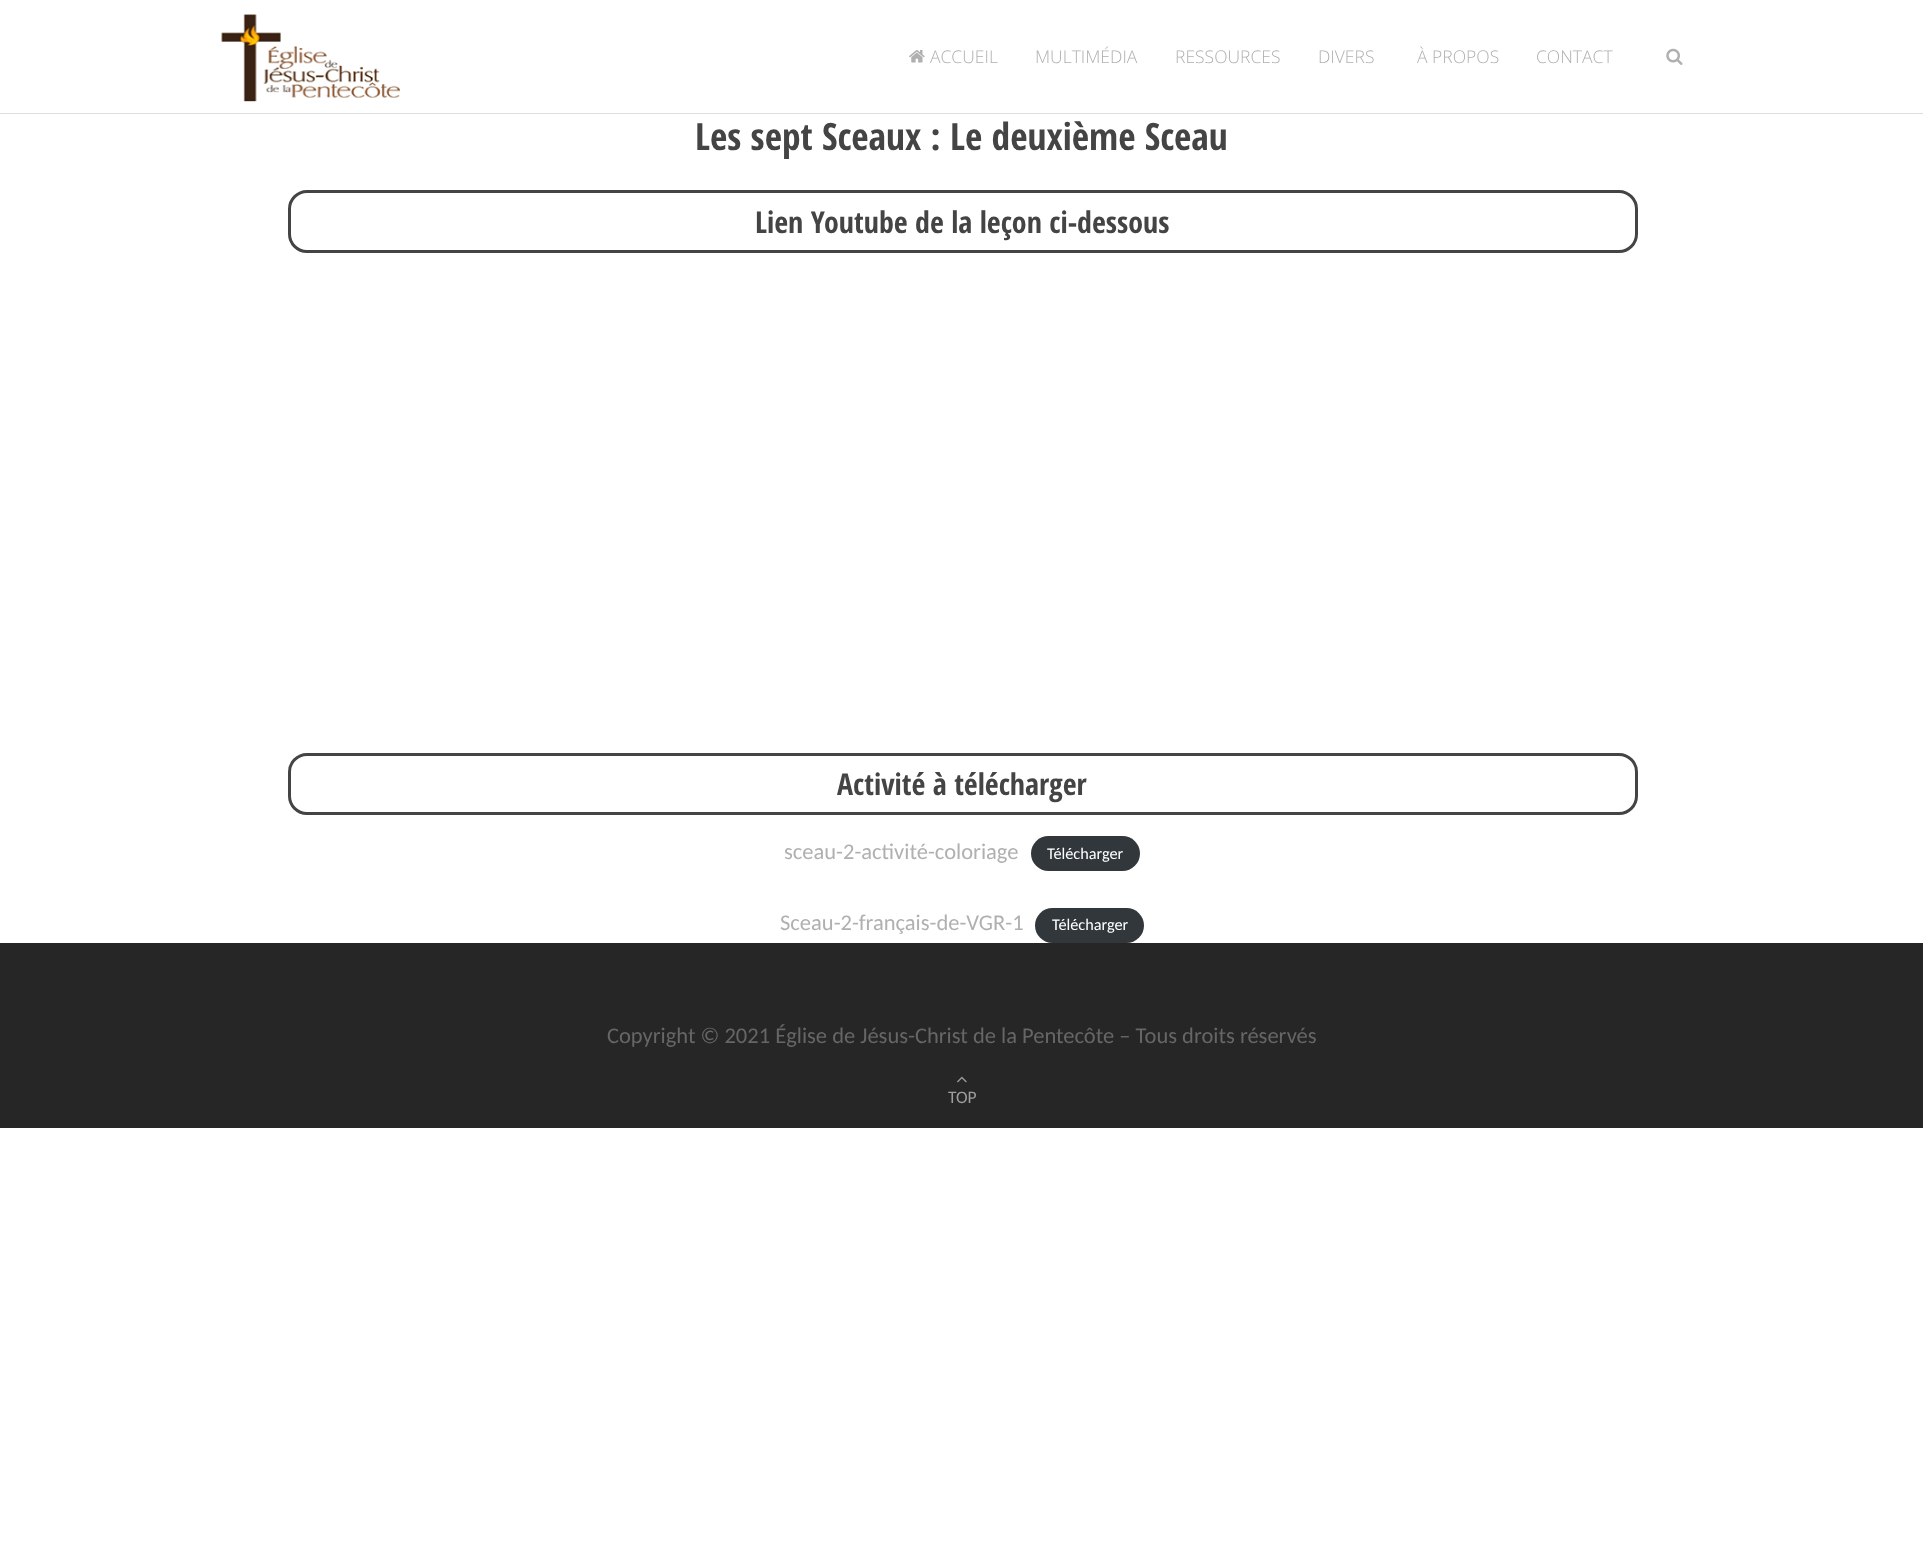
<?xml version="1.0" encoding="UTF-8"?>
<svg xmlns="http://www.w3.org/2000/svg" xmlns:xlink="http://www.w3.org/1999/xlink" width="1923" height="1567">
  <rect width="100%" height="100%" fill="#ffffff" />
  <rect y="113" width="1923" height="1" fill="#dddddd" />
  <image x="221" y="14" width="179" height="88" xlink:href="image1.png" />
  <image x="909" y="50" width="16" height="13" xlink:href="image2.png" />
  <image x="1666" y="48" width="17" height="17" xlink:href="image3.png" />
  <rect x="289.5" y="191.5" width="1347" height="60" rx="17.5" fill="none" stroke="#444444" stroke-width="3" />
  <rect x="289.5" y="754.5" width="1347" height="59" rx="17.5" fill="none" stroke="#444444" stroke-width="3" />
  <rect x="1031" y="836" width="109" height="35" rx="17.5" fill="#32373c" />
  <rect x="1035" y="908" width="109" height="35" rx="17.5" fill="#32373c" />
  <rect y="943" width="1923" height="185" fill="#262626" />
  <image x="957" y="1076" width="10" height="7" xlink:href="image4.png" />
  <text x="930" y="63" style="font-family: Open Sans; font-size: 17.5px; font-weight: 300; fill: #b0b0b0">ACCUEIL</text>
  <text x="1035" y="63" style="font-family: Open Sans; font-size: 17.5px; font-weight: 300; fill: #b0b0b0">MULTIMÉDIA</text>
  <text x="1175" y="63" style="font-family: Open Sans; font-size: 17.5px; font-weight: 300; fill: #b0b0b0">RESSOURCES</text>
  <text x="1318" y="63" style="font-family: Open Sans; font-size: 17.5px; font-weight: 300; fill: #b0b0b0">DIVERS</text>
  <text x="1417" y="63" style="font-family: Open Sans; font-size: 17.5px; font-weight: 300; fill: #b0b0b0">À PROPOS</text>
  <text x="1536" y="63" style="font-family: Open Sans; font-size: 17.5px; font-weight: 300; fill: #b0b0b0">CONTACT</text>
  <text x="695" y="150" style="font-family: Open Sans Condensed; font-size: 37.5px; font-weight: bold; fill: #444444">Les sept Sceaux : Le deuxième Sceau</text>
  <text x="755" y="233" style="font-family: Open Sans Condensed; font-size: 30px; font-weight: bold; fill: #444444">Lien Youtube de la leçon ci-dessous</text>
  <text x="837" y="795" style="font-family: Open Sans Condensed; font-size: 30px; font-weight: bold; fill: #444444">Activité à télécharger</text>
  <text x="784" y="859" style="font-family: Carlito; font-size: 22.5px; fill: #b0b0b0">sceau-2-activité-coloriage</text>
  <text x="1047" y="859" style="font-family: Carlito; font-size: 16.25px; fill: #ffffff">Télécharger</text>
  <text x="780" y="930" style="font-family: Carlito; font-size: 22.5px; fill: #b0b0b0">Sceau-2-français-de-VGR-1</text>
  <text x="1052" y="930" style="font-family: Carlito; font-size: 16.25px; fill: #ffffff">Télécharger</text>
  <text x="607" y="1043" style="font-family: Carlito; font-size: 22.5px; fill: #666666">Copyright © 2021 Église de Jésus-Christ de la Pentecôte – Tous droits réservés</text>
  <text x="948" y="1103" style="font-family: Carlito; font-size: 17.5px; fill: #9e9e9e">TOP</text>
</svg>
